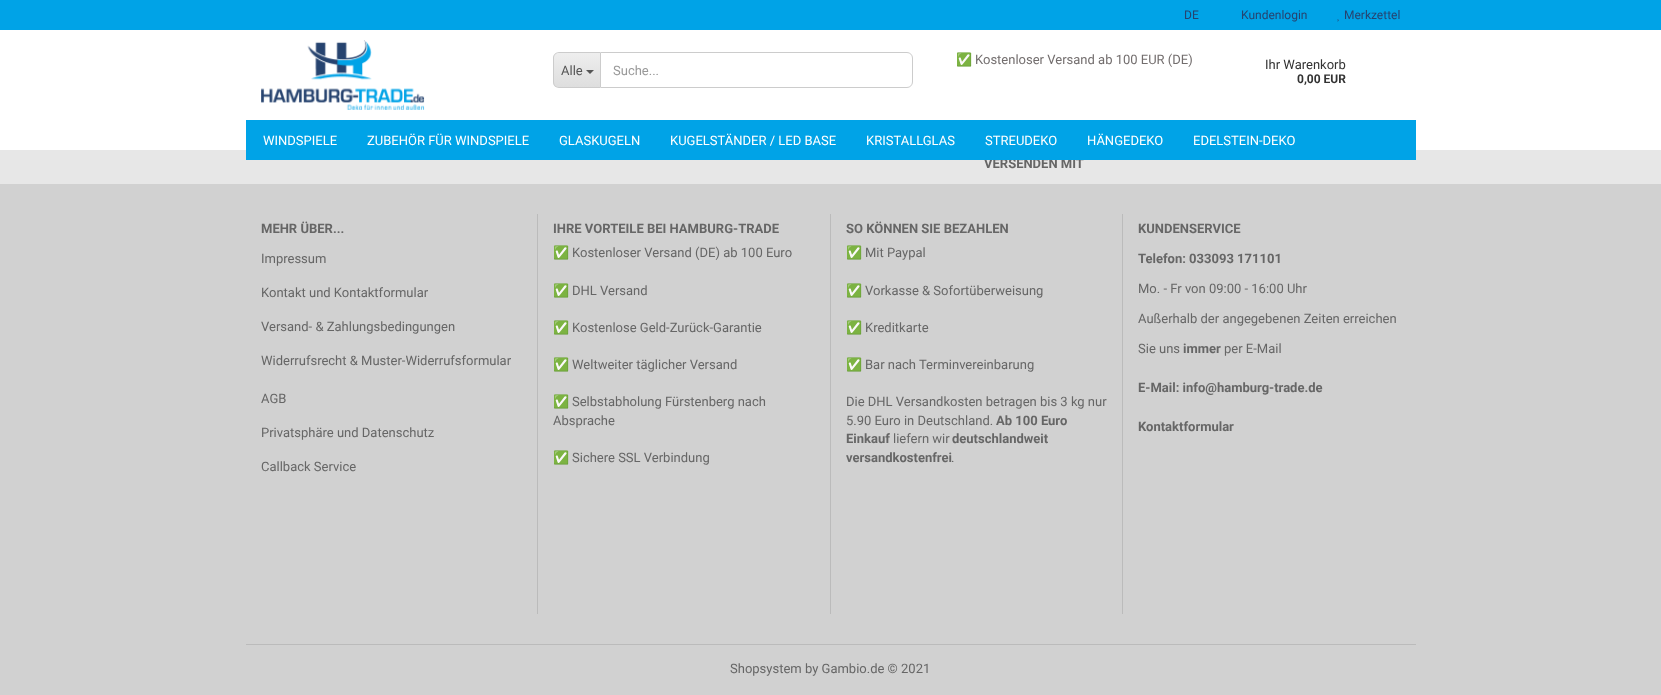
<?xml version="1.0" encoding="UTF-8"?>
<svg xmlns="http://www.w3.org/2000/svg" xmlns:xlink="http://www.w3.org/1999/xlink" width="1661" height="695">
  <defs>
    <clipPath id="clip1"><path d="M 559 52 h 41 v 36 h -41 c -3.5 0 -6 -2.5 -6 -6 v -24 c 0 -3.5 2.5 -6 6 -6 z" /></clipPath>
    <linearGradient id="g1" gradientUnits="userSpaceOnUse" x1="577" y1="53" x2="577" y2="87"><stop offset="0" stop-color="#eeeeee" /><stop offset="1" stop-color="#dedede" /></linearGradient>
  </defs>
  <rect width="100%" height="100%" fill="#d1d1d1" />
  <rect y="30" width="1661" height="120" fill="#ffffff" />
  <rect width="1661" height="30" fill="#00a3e7" />
  <image x="1337" y="19" width="2" height="3" xlink:href="image1.png" />
  <image x="261" y="40" width="164" height="70" xlink:href="image2.png" />
  <g clip-path="url(#clip1)">
    <rect x="553" y="53" width="47" height="34" fill="url(#g1)" />
  </g>
  <path d="M 559 52 h 41 v 36 h -41 c -3 0 -6 -3 -6 -6 v -24 c 0 -3 3 -6 6 -6 z m 0 1 h 41 v 34 h -41 c -3 0 -5 -2 -5 -5 v -24 c 0 -3 2 -5 5 -5 z" fill="#cccccc" fill-rule="evenodd" />
  <path d="M 586 70 h 8 l -4 4 z" fill="#555555" />
  <path d="M 600.5 52.5 h 306.5 c 3 0 5.5 2.5 5.5 5.5 v 24 c 0 3 -2.5 5.5 -5.5 5.5 h -306.5 z" fill="none" stroke="#cccccc" />
  <rect y="150" width="1661" height="34" fill="#e7e7e7" />
  <rect x="246" y="644" width="1170" height="1" fill="#bbbbbb" />
  <rect x="537" y="214" width="1" height="400" fill="#bbbbbb" />
  <rect x="830" y="214" width="1" height="400" fill="#bbbbbb" />
  <rect x="1122" y="214" width="1" height="400" fill="#bbbbbb" />
  <text x="1184" y="19" style="font-family: Roboto; font-size: 12px; fill: #26436f">DE</text>
  <text x="1241" y="19" style="font-family: Roboto; font-size: 12px; fill: #26436f">Kundenlogin</text>
  <text x="1344" y="19" style="font-family: Roboto; font-size: 12px; fill: #26436f">Merkzettel</text>
  <text x="561" y="75" style="font-family: Roboto; font-size: 13px; fill: #555555">Alle</text>
  <text x="613" y="75" style="font-family: Roboto; font-size: 13px; fill: #999999">Suche...</text>
  <text x="956" y="64" style="font-family: Noto Color Emoji; font-size: 13px; fill: #40e0d0">✅</text>
  <text x="975" y="64" style="font-family: Roboto; font-size: 13px; fill: #736e6e">Kostenloser Versand ab 100 EUR (DE)</text>
  <text x="1265" y="69" style="font-family: Roboto; font-size: 13px; fill: #333333">Ihr Warenkorb</text>
  <text x="1297" y="83" style="font-family: Roboto; font-size: 12px; font-weight: bold; fill: #333333">0,00 EUR</text>
  <text x="984" y="168" style="font-family: Roboto; font-size: 13px; font-weight: bold; fill: #666666">VERSENDEN MIT</text>
  <rect x="246" y="120" width="1170" height="40" fill="#00a3e7" />
  <text x="1193" y="145" style="font-family: Roboto; font-size: 13px; fill: #ffffff">EDELSTEIN-DEKO</text>
  <text x="1087" y="145" style="font-family: Roboto; font-size: 13px; fill: #ffffff">HÄNGEDEKO</text>
  <text x="985" y="145" style="font-family: Roboto; font-size: 13px; fill: #ffffff">STREUDEKO</text>
  <text x="866" y="145" style="font-family: Roboto; font-size: 13px; fill: #ffffff">KRISTALLGLAS</text>
  <text x="670" y="145" style="font-family: Roboto; font-size: 13px; fill: #ffffff">KUGELSTÄNDER / LED BASE</text>
  <text x="559" y="145" style="font-family: Roboto; font-size: 13px; fill: #ffffff">GLASKUGELN</text>
  <text x="367" y="145" style="font-family: Roboto; font-size: 13px; fill: #ffffff">ZUBEHÖR FÜR WINDSPIELE</text>
  <text x="263" y="145" style="font-family: Roboto; font-size: 13px; fill: #ffffff">WINDSPIELE</text>
  <text x="261" y="233" style="font-family: Roboto; font-size: 13px; font-weight: bold; fill: #666666">MEHR ÜBER...</text>
  <text x="261" y="263" style="font-family: Roboto; font-size: 13px; fill: #666666">Impressum</text>
  <text x="261" y="297" style="font-family: Roboto; font-size: 13px; fill: #666666">Kontakt und Kontaktformular</text>
  <text x="261" y="331" style="font-family: Roboto; font-size: 13px; fill: #666666">Versand- &amp; Zahlungsbedingungen</text>
  <text x="261" y="365" style="font-family: Roboto; font-size: 13px; fill: #666666">Widerrufsrecht &amp; Muster-Widerrufsformular</text>
  <text x="261" y="403" style="font-family: Roboto; font-size: 13px; fill: #666666">AGB</text>
  <text x="261" y="437" style="font-family: Roboto; font-size: 13px; fill: #666666">Privatsphäre und Datenschutz</text>
  <text x="261" y="471" style="font-family: Roboto; font-size: 13px; fill: #666666">Callback Service</text>
  <text x="553" y="233" style="font-family: Roboto; font-size: 13px; font-weight: bold; fill: #666666">IHRE VORTEILE BEI HAMBURG-TRADE</text>
  <text x="553" y="257" style="font-family: Noto Color Emoji; font-size: 13px; fill: #666666">✅</text>
  <text x="572" y="257" style="font-family: Roboto; font-size: 13px; fill: #666666">Kostenloser Versand (DE) ab 100 Euro</text>
  <text x="553" y="295" style="font-family: Noto Color Emoji; font-size: 13px; fill: #666666">✅</text>
  <text x="572" y="295" style="font-family: Roboto; font-size: 13px; fill: #666666">DHL Versand</text>
  <text x="553" y="332" style="font-family: Noto Color Emoji; font-size: 13px; fill: #666666">✅</text>
  <text x="572" y="332" style="font-family: Roboto; font-size: 13px; fill: #666666">Kostenlose Geld-Zurück-Garantie</text>
  <text x="553" y="369" style="font-family: Noto Color Emoji; font-size: 13px; fill: #666666">✅</text>
  <text x="572" y="369" style="font-family: Roboto; font-size: 13px; fill: #666666">Weltweiter täglicher Versand</text>
  <text x="553" y="406" style="font-family: Noto Color Emoji; font-size: 13px; fill: #666666">✅</text>
  <text x="572" y="406" style="font-family: Roboto; font-size: 13px; fill: #666666">Selbstabholung Fürstenberg nach</text>
  <text x="553" y="425" style="font-family: Roboto; font-size: 13px; fill: #666666">Absprache</text>
  <text x="553" y="462" style="font-family: Noto Color Emoji; font-size: 13px; fill: #666666">✅</text>
  <text x="572" y="462" style="font-family: Roboto; font-size: 13px; fill: #666666">Sichere SSL Verbindung</text>
  <text x="846" y="233" style="font-family: Roboto; font-size: 13px; font-weight: bold; fill: #666666">SO KÖNNEN SIE BEZAHLEN</text>
  <text x="846" y="257" style="font-family: Noto Color Emoji; font-size: 13px; fill: #666666">✅</text>
  <text x="865" y="257" style="font-family: Roboto; font-size: 13px; fill: #666666">Mit Paypal</text>
  <text x="846" y="295" style="font-family: Noto Color Emoji; font-size: 13px; fill: #666666">✅</text>
  <text x="865" y="295" style="font-family: Roboto; font-size: 13px; fill: #666666">Vorkasse &amp; Sofortüberweisung</text>
  <text x="846" y="332" style="font-family: Noto Color Emoji; font-size: 13px; fill: #666666">✅</text>
  <text x="865" y="332" style="font-family: Roboto; font-size: 13px; fill: #666666">Kreditkarte</text>
  <text x="846" y="369" style="font-family: Noto Color Emoji; font-size: 13px; fill: #666666">✅</text>
  <text x="865" y="369" style="font-family: Roboto; font-size: 13px; fill: #666666">Bar nach Terminvereinbarung</text>
  <text x="846" y="406" style="font-family: Roboto; font-size: 13px; fill: #666666">Die DHL Versandkosten betragen bis 3 kg nur</text>
  <text x="846" y="425" style="font-family: Roboto; font-size: 13px; fill: #666666">5.90 Euro in Deutschland.</text>
  <text x="996" y="425" style="font-family: Roboto; font-size: 13px; font-weight: bold; fill: #666666">Ab 100 Euro</text>
  <text x="846" y="443" style="font-family: Roboto; font-size: 13px; font-weight: bold; fill: #666666">Einkauf</text>
  <text x="893" y="443" style="font-family: Roboto; font-size: 13px; fill: #666666">liefern wir</text>
  <text x="952" y="443" style="font-family: Roboto; font-size: 13px; font-weight: bold; fill: #666666">deutschlandweit</text>
  <text x="846" y="462" style="font-family: Roboto; font-size: 13px; font-weight: bold; fill: #666666">versandkostenfrei</text>
  <text x="951" y="462" style="font-family: Roboto; font-size: 13px; fill: #666666">.</text>
  <text x="1138" y="233" style="font-family: Roboto; font-size: 13px; font-weight: bold; fill: #666666">KUNDENSERVICE</text>
  <text x="1138" y="263" style="font-family: Roboto; font-size: 13px; font-weight: bold; fill: #666666">Telefon: 033093 171101</text>
  <text x="1138" y="293" style="font-family: Roboto; font-size: 13px; fill: #666666">Mo. - Fr von 09:00 - 16:00 Uhr</text>
  <text x="1138" y="323" style="font-family: Roboto; font-size: 13px; fill: #666666">Außerhalb der angegebenen Zeiten erreichen</text>
  <text x="1138" y="353" style="font-family: Roboto; font-size: 13px; fill: #666666">Sie uns</text>
  <text x="1183" y="353" style="font-family: Roboto; font-size: 13px; font-weight: bold; fill: #666666">immer</text>
  <text x="1224" y="353" style="font-family: Roboto; font-size: 13px; fill: #666666">per E-Mail</text>
  <text x="1138" y="392" style="font-family: Roboto; font-size: 13px; font-weight: bold; fill: #666666">E-Mail: info@hamburg-trade.de</text>
  <text x="1138" y="431" style="font-family: Roboto; font-size: 13px; font-weight: bold; fill: #666666">Kontaktformular</text>
  <text x="730" y="673" style="font-family: Roboto; font-size: 13px; fill: #666666">Shopsystem by Gambio.de © 2021</text>
</svg>
